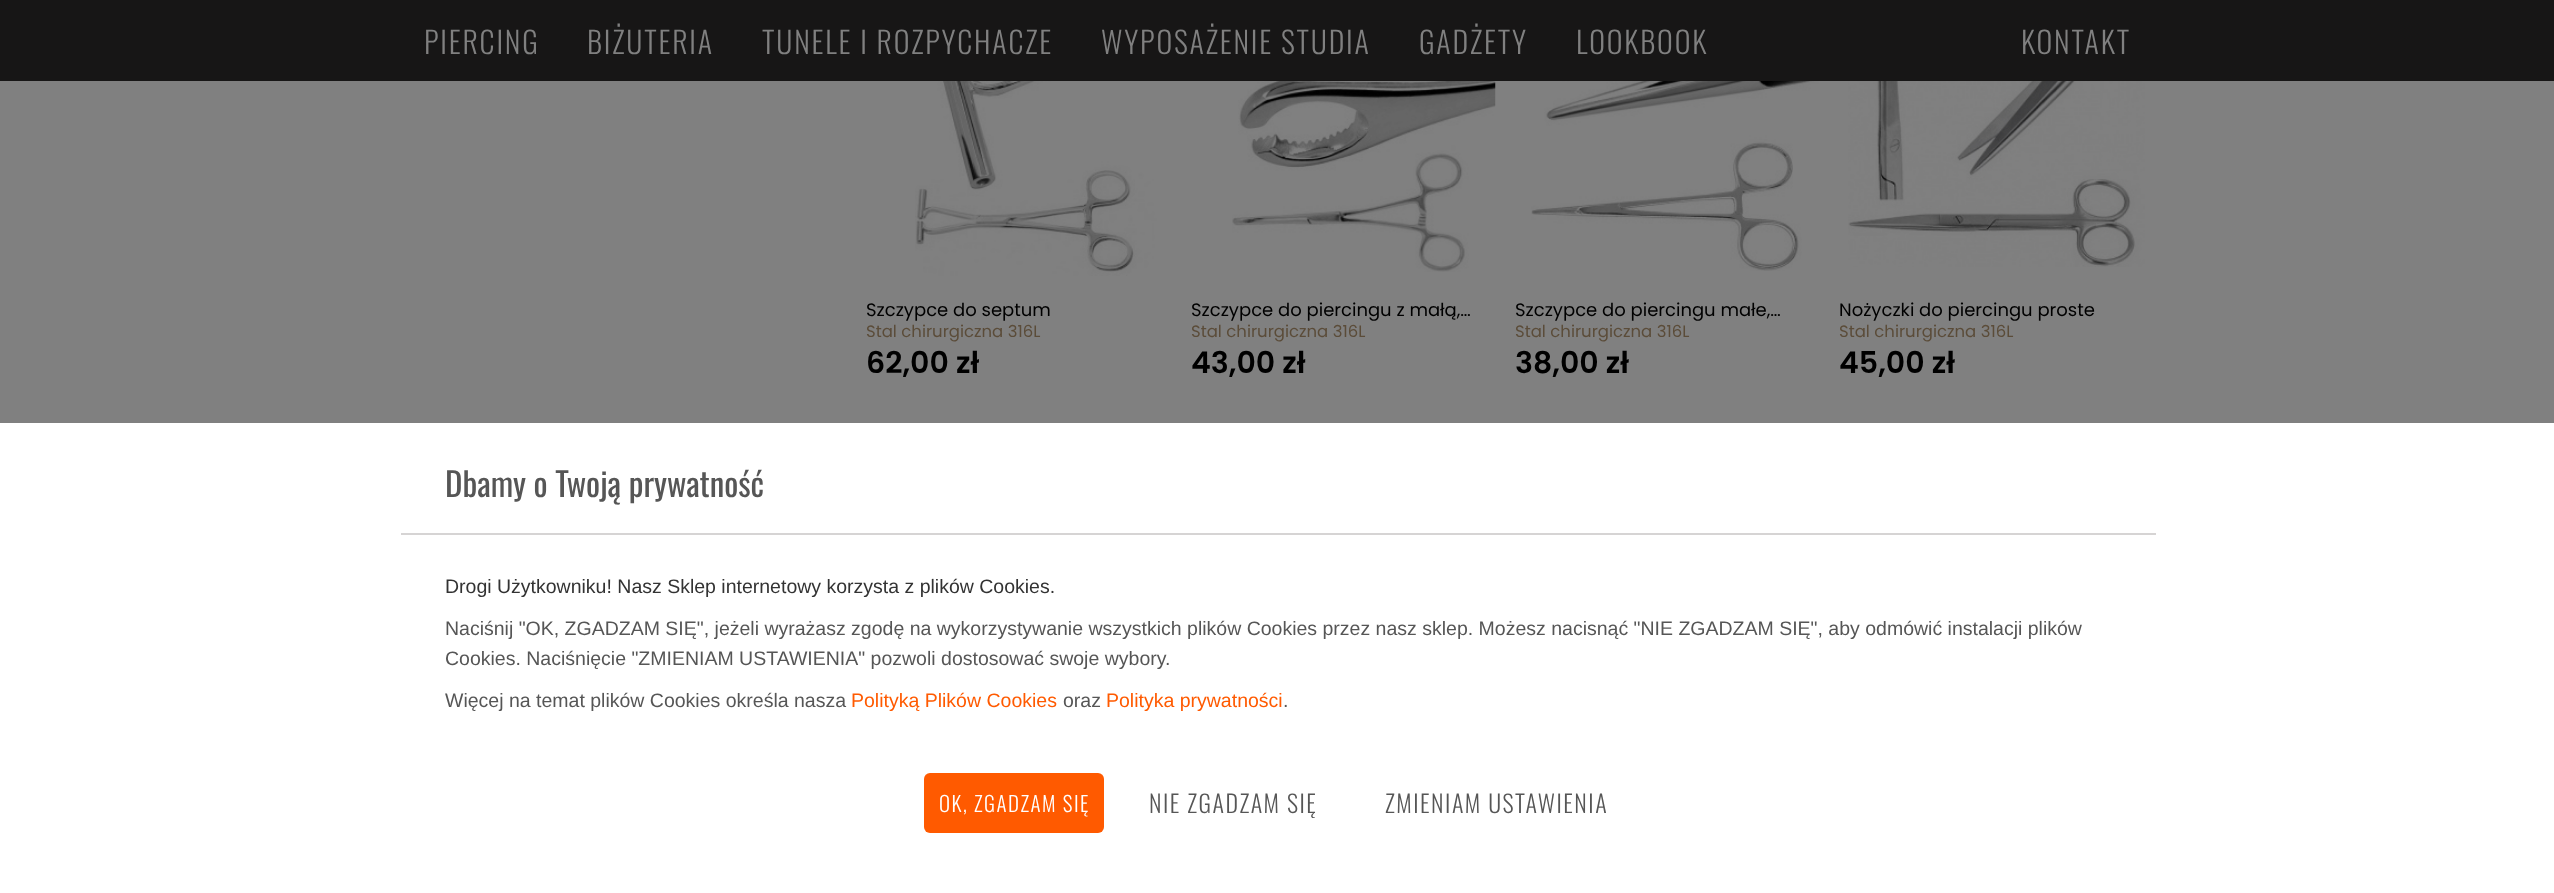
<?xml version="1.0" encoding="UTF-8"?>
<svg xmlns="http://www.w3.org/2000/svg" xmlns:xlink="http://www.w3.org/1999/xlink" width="2554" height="893">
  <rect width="100%" height="100%" fill="#808080" />
  <rect width="2554" height="81" fill="#171616" />
  <image x="915" y="81" width="257" height="195" xlink:href="image1.png" />
  <image x="1232" y="81" width="264" height="191" xlink:href="image2.png" />
  <image x="1531" y="81" width="289" height="190" xlink:href="image3.png" />
  <image x="1848" y="81" width="297" height="186" xlink:href="image4.png" />
  <rect y="423" width="2554" height="470" fill="#ffffff" />
  <rect x="401" y="533" width="1755" height="2" fill="#d6d4d4" />
  <rect x="924" y="773" width="180" height="60" rx="6" fill="#ff5a00" />
  <text x="424" y="54" style="font-family: Oswald; font-size: 30px; font-weight: 300; letter-spacing: 1.8px; fill: #808080">PIERCING</text>
  <text x="587" y="54" style="font-family: Oswald; font-size: 30px; font-weight: 300; letter-spacing: 1.8px; fill: #808080">BIŻUTERIA</text>
  <text x="762" y="54" style="font-family: Oswald; font-size: 30px; font-weight: 300; letter-spacing: 1.8px; fill: #808080">TUNELE I ROZPYCHACZE</text>
  <text x="1101" y="54" style="font-family: Oswald; font-size: 30px; font-weight: 300; letter-spacing: 1.8px; fill: #808080">WYPOSAŻENIE STUDIA</text>
  <text x="1419" y="54" style="font-family: Oswald; font-size: 30px; font-weight: 300; letter-spacing: 1.8px; fill: #808080">GADŻETY</text>
  <text x="1576" y="54" style="font-family: Oswald; font-size: 30px; font-weight: 300; letter-spacing: 1.8px; fill: #808080">LOOKBOOK</text>
  <text x="2021" y="54" style="font-family: Oswald; font-size: 30px; font-weight: 300; letter-spacing: 1.8px; fill: #808080">KONTAKT</text>
  <text x="866" y="316" style="font-family: Poppins; font-size: 18px; fill: #000000">Szczypce do septum</text>
  <text x="866" y="337" style="font-family: Poppins; font-size: 16.5px; fill: #5b4c39">Stal chirurgiczna 316L</text>
  <text x="866" y="373" style="font-family: Poppins; font-size: 30px; font-weight: 600; fill: #000000">62,00 zł</text>
  <text x="1191" y="316" style="font-family: Poppins; font-size: 18px; fill: #000000">Szczypce do piercingu z małą,…</text>
  <text x="1191" y="337" style="font-family: Poppins; font-size: 16.5px; fill: #5b4c39">Stal chirurgiczna 316L</text>
  <text x="1191" y="373" style="font-family: Poppins; font-size: 30px; font-weight: 600; fill: #000000">43,00 zł</text>
  <text x="1515" y="316" style="font-family: Poppins; font-size: 18px; fill: #000000">Szczypce do piercingu małe,…</text>
  <text x="1515" y="337" style="font-family: Poppins; font-size: 16.5px; fill: #5b4c39">Stal chirurgiczna 316L</text>
  <text x="1515" y="373" style="font-family: Poppins; font-size: 30px; font-weight: 600; fill: #000000">38,00 zł</text>
  <text x="1839" y="316" style="font-family: Poppins; font-size: 18px; fill: #000000">Nożyczki do piercingu proste</text>
  <text x="1839" y="337" style="font-family: Poppins; font-size: 16.5px; fill: #5b4c39">Stal chirurgiczna 316L</text>
  <text x="1839" y="373" style="font-family: Poppins; font-size: 30px; font-weight: 600; fill: #000000">45,00 zł</text>
  <text x="445" y="497" style="font-family: Oswald; font-size: 33px; fill: #565656">Dbamy o Twoją prywatność</text>
  <text x="445" y="593" style="font-family: Liberation Sans; font-size: 19.5px; fill: #333333">Drogi Użytkowniku! Nasz Sklep internetowy korzysta z plików Cookies.</text>
  <text x="445" y="635" style="font-family: Liberation Sans; font-size: 19.5px; fill: #565656">Naciśnij "OK, ZGADZAM SIĘ", jeżeli wyrażasz zgodę na wykorzystywanie wszystkich plików Cookies przez nasz sklep. Możesz nacisnąć "NIE ZGADZAM SIĘ", aby odmówić instalacji plików</text>
  <text x="445" y="665" style="font-family: Liberation Sans; font-size: 19.5px; fill: #565656">Cookies. Naciśnięcie "ZMIENIAM USTAWIENIA" pozwoli dostosować swoje wybory.</text>
  <text x="445" y="707" style="font-family: Liberation Sans; font-size: 19.5px; fill: #565656">Więcej na temat plików Cookies określa nasza</text>
  <text x="851" y="707" style="font-family: Liberation Sans; font-size: 19.5px; fill: #ff5a00">Polityką Plików Cookies</text>
  <text x="1063" y="707" style="font-family: Liberation Sans; font-size: 19.5px; fill: #565656">oraz</text>
  <text x="1106" y="707" style="font-family: Liberation Sans; font-size: 19.5px; fill: #ff5a00">Polityka prywatności</text>
  <text x="1283" y="707" style="font-family: Liberation Sans; font-size: 19.5px; fill: #565656">.</text>
  <text x="939" y="812" style="font-family: Oswald; font-size: 21px; font-weight: 300; letter-spacing: 1.5px; fill: #ffffff">OK, ZGADZAM SIĘ</text>
  <text x="1149" y="813" style="font-family: Oswald; font-size: 24px; font-weight: 300; letter-spacing: 1.5px; fill: #565656">NIE ZGADZAM SIĘ</text>
  <text x="1385" y="813" style="font-family: Oswald; font-size: 24px; font-weight: 300; letter-spacing: 1.5px; fill: #565656">ZMIENIAM USTAWIENIA</text>
</svg>
